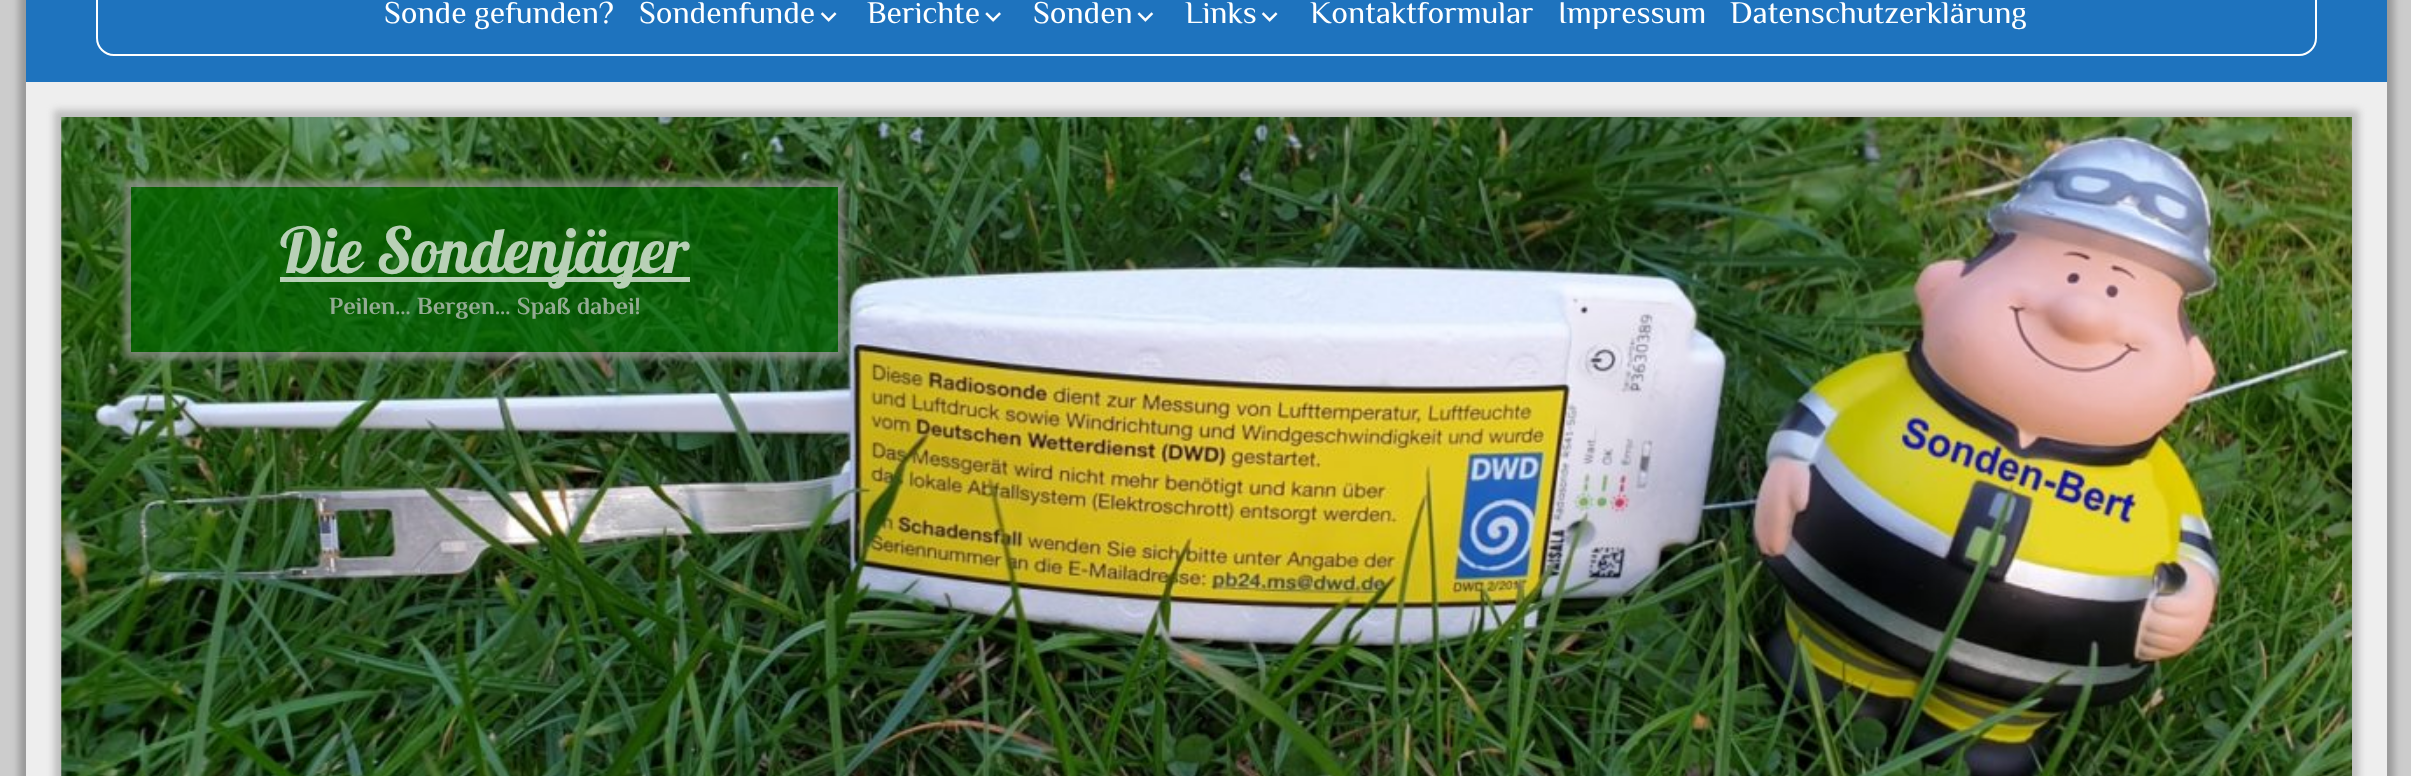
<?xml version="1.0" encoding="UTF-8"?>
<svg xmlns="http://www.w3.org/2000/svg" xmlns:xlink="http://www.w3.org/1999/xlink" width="2411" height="776">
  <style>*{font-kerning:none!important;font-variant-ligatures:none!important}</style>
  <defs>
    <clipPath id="clip1"><path d="M 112 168 h 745 v 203 h -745 z m 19 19 h 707 v 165 h -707 z" clip-rule="evenodd" /></clipPath>
  </defs>
  <rect width="100%" height="100%" fill="#cccccc" />
  <rect x="19" y="-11" width="2375" height="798" fill="#999999" filter="blur(3.5px)" />
  <rect x="26" y="82" width="2361" height="694" fill="#eeeeee" />
  <rect x="26" width="2361" height="82" fill="#1e73be" />
  <rect x="97" y="-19" width="2219" height="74" rx="17" fill="none" stroke="#ffffff" stroke-width="2" />
  <image x="820" y="12" width="17" height="10" xlink:href="image1.png" />
  <image x="985" y="12" width="16" height="10" xlink:href="image2.png" />
  <image x="1137" y="12" width="17" height="10" xlink:href="image3.png" />
  <image x="1261" y="12" width="17" height="10" xlink:href="image1.png" />
  <rect x="54" y="110" width="2305" height="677" fill="#bfbfbf" filter="blur(3.5px)" />
  <image x="61" y="117" width="2291" height="659" xlink:href="image4.png" />
  <g clip-path="url(#clip1)">
    <rect x="124" y="180" width="721" height="179" fill="#999999" fill-opacity="0.7" filter="blur(3.5px)" />
  </g>
  <rect x="131" y="187" width="707" height="165" fill="#006600" fill-opacity="0.7" />
  <rect x="280" y="277" width="410" height="5" fill="#ffffff" fill-opacity="0.7" />
  <text x="384" y="23" style="font-family: Philosopher; font-size: 31.5px; fill: #ffffff">Sonde gefunden?</text>
  <text x="639" y="23" style="font-family: Philosopher; font-size: 31.5px; fill: #ffffff">Sondenfunde</text>
  <text x="867" y="23" style="font-family: Philosopher; font-size: 31.5px; fill: #ffffff">Berichte</text>
  <text x="1033" y="23" style="font-family: Philosopher; font-size: 31.5px; fill: #ffffff">Sonden</text>
  <text x="1185" y="23" style="font-family: Philosopher; font-size: 31.5px; fill: #ffffff">Links</text>
  <text x="1310" y="23" style="font-family: Philosopher; font-size: 31.5px; fill: #ffffff">Kontaktformular</text>
  <text x="1558" y="23" style="font-family: Philosopher; font-size: 31.5px; fill: #ffffff">Impressum</text>
  <text x="1730" y="23" style="font-family: Philosopher; font-size: 31.5px; fill: #ffffff">Datenschutzerklärung</text>
  <text x="280" y="273" style="font-family: Lobster; font-size: 63px; fill: #b8d0b6">Die Sondenjäger</text>
  <text x="329" y="314" style="font-family: Philosopher; font-size: 24.5px; font-weight: bold; fill: #93ab92">Peilen… Bergen… Spaß dabei!</text>
</svg>
